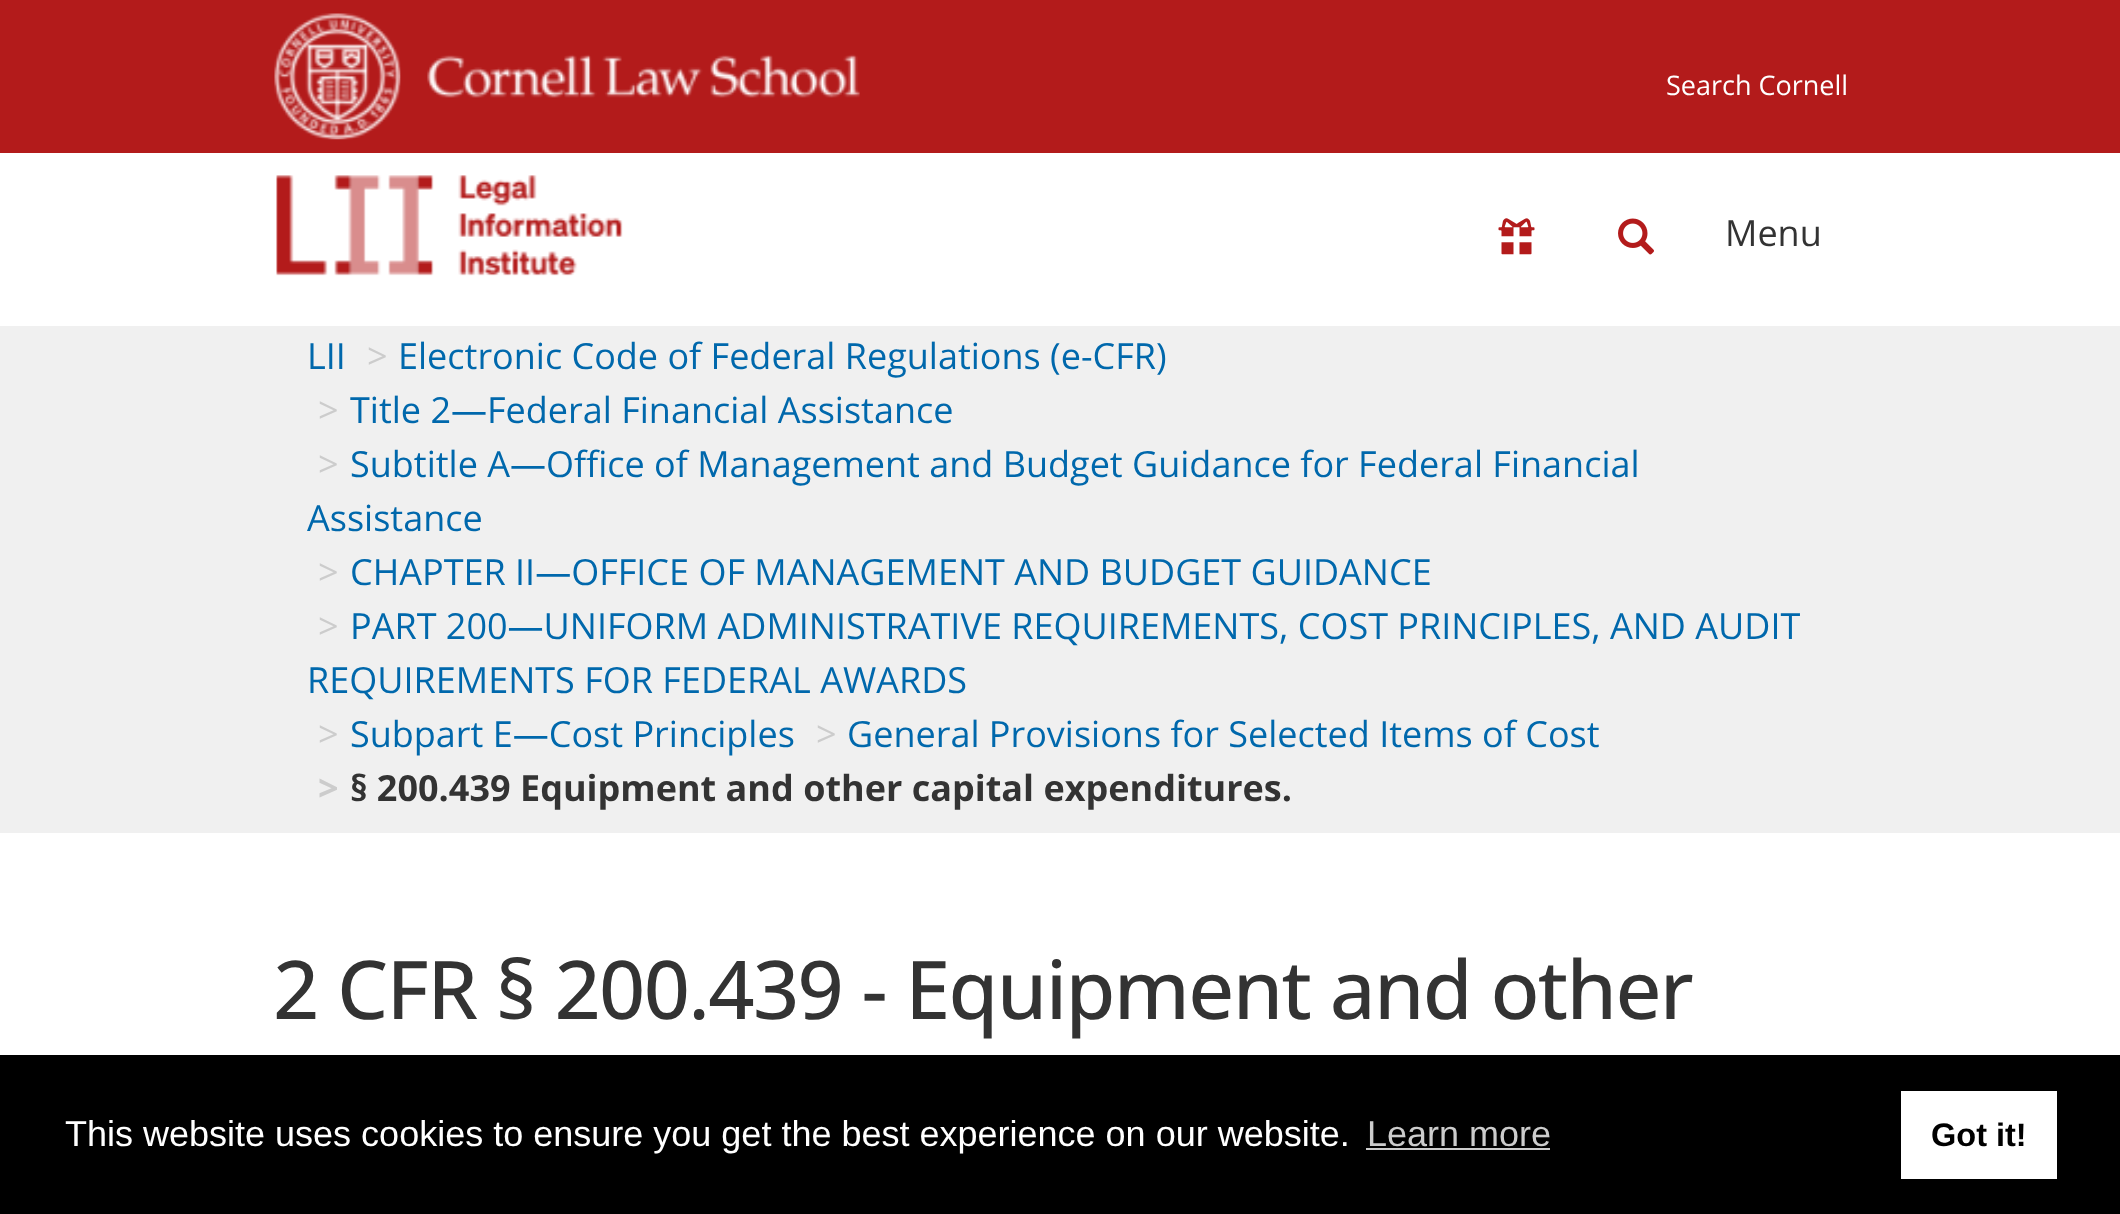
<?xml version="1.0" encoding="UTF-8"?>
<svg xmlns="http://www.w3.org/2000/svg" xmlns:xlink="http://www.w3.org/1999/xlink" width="2120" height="1214">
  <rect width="100%" height="100%" fill="#ffffff" />
  <rect width="2120" height="153" fill="#b31b1b" />
  <image x="274" y="13" width="127" height="127" xlink:href="image1.png" />
  <image x="427" y="54" width="433" height="44" xlink:href="image2.png" />
  <image x="276" y="175" width="347" height="101" xlink:href="image3.png" />
  <image x="1498" y="218" width="37" height="37" xlink:href="image4.png" />
  <image x="1618" y="218" width="36" height="37" xlink:href="image5.png" />
  <rect y="326" width="2120" height="507" fill="#f0f0f0" />
  <rect y="1055" width="2120" height="159" fill="#000000" />
  <rect x="1366" y="1148" width="184" height="2" fill="#cccccc" />
  <rect x="1901" y="1091" width="156" height="88" fill="#ffffff" />
  <text x="1666" y="95" style="font-family: Open Sans; font-size: 27px; fill: #ffffff">Search Cornell</text>
  <text x="1725" y="246" style="font-family: Open Sans; font-size: 36px; fill: #333333">Menu</text>
  <text x="307" y="369" style="font-family: Open Sans; font-size: 36px; fill: #0068ac">LII</text>
  <text x="367" y="369" style="font-family: Open Sans; font-size: 36px; fill: #cccccc">&gt;</text>
  <text x="398" y="369" style="font-family: Open Sans; font-size: 36px; fill: #0068ac">Electronic Code of Federal Regulations (e-CFR)</text>
  <text x="318" y="423" style="font-family: Open Sans; font-size: 36px; fill: #cccccc">&gt;</text>
  <text x="350" y="423" style="font-family: Open Sans; font-size: 36px; fill: #0068ac">Title 2—Federal Financial Assistance</text>
  <text x="318" y="477" style="font-family: Open Sans; font-size: 36px; fill: #cccccc">&gt;</text>
  <text x="350" y="477" style="font-family: Open Sans; font-size: 36px; fill: #0068ac">Subtitle A—Office of Management and Budget Guidance for Federal Financial</text>
  <text x="307" y="531" style="font-family: Open Sans; font-size: 36px; fill: #0068ac">Assistance</text>
  <text x="318" y="585" style="font-family: Open Sans; font-size: 36px; fill: #cccccc">&gt;</text>
  <text x="350" y="585" style="font-family: Open Sans; font-size: 36px; fill: #0068ac">CHAPTER II—OFFICE OF MANAGEMENT AND BUDGET GUIDANCE</text>
  <text x="318" y="639" style="font-family: Open Sans; font-size: 36px; fill: #cccccc">&gt;</text>
  <text x="350" y="639" style="font-family: Open Sans; font-size: 36px; fill: #0068ac">PART 200—UNIFORM ADMINISTRATIVE REQUIREMENTS, COST PRINCIPLES, AND AUDIT</text>
  <text x="307" y="693" style="font-family: Open Sans; font-size: 36px; fill: #0068ac">REQUIREMENTS FOR FEDERAL AWARDS</text>
  <text x="318" y="747" style="font-family: Open Sans; font-size: 36px; fill: #cccccc">&gt;</text>
  <text x="350" y="747" style="font-family: Open Sans; font-size: 36px; fill: #0068ac">Subpart E—Cost Principles</text>
  <text x="816" y="747" style="font-family: Open Sans; font-size: 36px; fill: #cccccc">&gt;</text>
  <text x="847" y="747" style="font-family: Open Sans; font-size: 36px; fill: #0068ac">General Provisions for Selected Items of Cost</text>
  <text x="318" y="801" style="font-family: Open Sans; font-size: 36px; font-weight: bold; fill: #cccccc">&gt;</text>
  <text x="350" y="801" style="font-family: Open Sans; font-size: 36px; font-weight: bold; fill: #333333">§ 200.439 Equipment and other capital expenditures.</text>
  <text x="273" y="1019" style="font-family: Open Sans; font-size: 81px; font-weight: 500; letter-spacing: -1.7px; fill: #333333">2 CFR § 200.439 - Equipment and other</text>
  <text x="65" y="1146" style="font-family: Liberation Sans; font-size: 36px; fill: #ffffff">This website uses cookies to ensure you get the best experience on our website.</text>
  <text x="1367" y="1146" style="font-family: Liberation Sans; font-size: 36px; fill: #cccccc">Learn more</text>
  <text x="1931" y="1146" style="font-family: Liberation Sans; font-size: 32.5px; font-weight: bold; fill: #000000">Got it!</text>
</svg>
